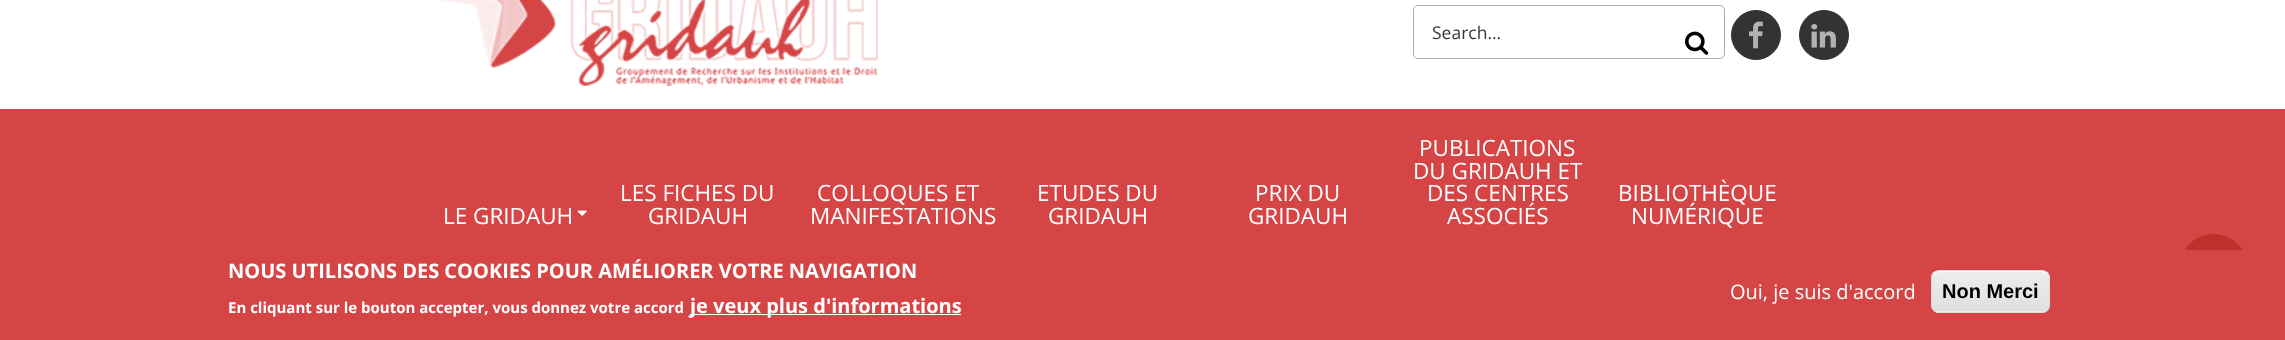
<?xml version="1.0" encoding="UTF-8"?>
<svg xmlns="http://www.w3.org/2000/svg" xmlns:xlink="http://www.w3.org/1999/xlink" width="2285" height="340">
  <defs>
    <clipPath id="clip1"><rect x="1931" y="270" width="119" height="43" rx="8" /></clipPath>
    <linearGradient id="g1" gradientUnits="userSpaceOnUse" x1="1991" y1="271" x2="1991" y2="311"><stop offset="0.05" stop-color="#ededed" /><stop offset="1" stop-color="#dfdfdf" /></linearGradient>
    <linearGradient id="g2" gradientUnits="userSpaceOnUse" x1="1991" y1="311" x2="1991" y2="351"><stop offset="0.05" stop-color="#ededed" /><stop offset="1" stop-color="#dfdfdf" /></linearGradient>
  </defs>
  <rect width="100%" height="100%" fill="#ffffff" />
  <image x="439" y="0" width="439" height="86" xlink:href="image1.png" />
  <rect x="1413.5" y="5.5" width="311" height="53" rx="4.5" fill="none" stroke="#acacac" />
  <image x="1685" y="31" width="24" height="24" xlink:href="image2.png" />
  <circle cx="1756" cy="35" r="24.5" fill="#333333" stroke="#333333" />
  <image x="1749" y="21" width="14" height="28" xlink:href="image3.png" />
  <circle cx="1824" cy="35" r="24.5" fill="#333333" stroke="#333333" />
  <image x="1811" y="24" width="25" height="24" xlink:href="image4.png" />
  <rect y="109" width="2285" height="141" fill="#d64545" />
  <image x="577" y="210" width="10" height="6" xlink:href="image5.png" />
  <circle cx="2213.5" cy="268.5" r="34.5" fill="#961300" fill-opacity="0.4" />
  <rect y="250" width="2285" height="90" fill="#d64545" />
  <rect x="690" y="314" width="271" height="1" fill="#ffffff" />
  <g clip-path="url(#clip1)">
    <rect x="1931" y="271" width="119" height="40" fill="url(#g1)" />
    <rect x="1931" y="311" width="119" height="2" fill="url(#g2)" />
  </g>
  <path d="M 1939 272 h 103 c 4 0 7 3 7 7 v -2 c 0 -3 -3 -6 -6 -6 h -104 c -2 0 -5 1 -5 4 c 1 -2 3 -3 5 -3 z" fill="#ffffff" />
  <rect x="1931.5" y="270.5" width="118" height="42" rx="7.5" fill="none" stroke="#dcdcdc" />
  <text x="1432" y="39" style="font-family: Open Sans; font-size: 17.5px; fill: #363636">Search...</text>
  <text x="443" y="224" style="font-family: Open Sans; font-size: 22.5px; fill: #ffffff">LE GRIDAUH</text>
  <text x="620" y="201" style="font-family: Open Sans; font-size: 22.5px; fill: #ffffff">LES FICHES DU</text>
  <text x="648" y="224" style="font-family: Open Sans; font-size: 22.5px; fill: #ffffff">GRIDAUH</text>
  <text x="817" y="201" style="font-family: Open Sans; font-size: 22.5px; fill: #ffffff">COLLOQUES ET</text>
  <text x="810" y="224" style="font-family: Open Sans; font-size: 22.5px; fill: #ffffff">MANIFESTATIONS</text>
  <text x="1037" y="201" style="font-family: Open Sans; font-size: 22.5px; fill: #ffffff">ETUDES DU</text>
  <text x="1048" y="224" style="font-family: Open Sans; font-size: 22.5px; fill: #ffffff">GRIDAUH</text>
  <text x="1255" y="201" style="font-family: Open Sans; font-size: 22.5px; fill: #ffffff">PRIX DU</text>
  <text x="1248" y="224" style="font-family: Open Sans; font-size: 22.5px; fill: #ffffff">GRIDAUH</text>
  <text x="1419" y="156" style="font-family: Open Sans; font-size: 22.5px; fill: #ffffff">PUBLICATIONS</text>
  <text x="1413" y="179" style="font-family: Open Sans; font-size: 22.5px; fill: #ffffff">DU GRIDAUH ET</text>
  <text x="1427" y="201" style="font-family: Open Sans; font-size: 22.5px; fill: #ffffff">DES CENTRES</text>
  <text x="1447" y="224" style="font-family: Open Sans; font-size: 22.5px; fill: #ffffff">ASSOCIÉS</text>
  <text x="1618" y="201" style="font-family: Open Sans; font-size: 22.5px; fill: #ffffff">BIBLIOTHÈQUE</text>
  <text x="1631" y="224" style="font-family: Open Sans; font-size: 22.5px; fill: #ffffff">NUMÉRIQUE</text>
  <text x="228" y="278" style="font-family: Open Sans; font-size: 20px; font-weight: bold; fill: #ffffff">NOUS UTILISONS DES COOKIES POUR AMÉLIORER VOTRE NAVIGATION</text>
  <text x="228" y="313" style="font-family: Open Sans; font-size: 15px; font-weight: bold; fill: #ffffff">En cliquant sur le bouton accepter, vous donnez votre accord</text>
  <text x="690" y="313" style="font-family: Open Sans; font-size: 20px; font-weight: bold; fill: #ffffff">je veux plus d'informations</text>
  <text x="1730" y="299" style="font-family: Open Sans; font-size: 20px; fill: #ffffff">Oui, je suis d'accord</text>
  <text x="1942" y="298" style="font-family: Liberation Sans; font-size: 20px; font-weight: bold; fill: #000000">Non Merci</text>
</svg>
